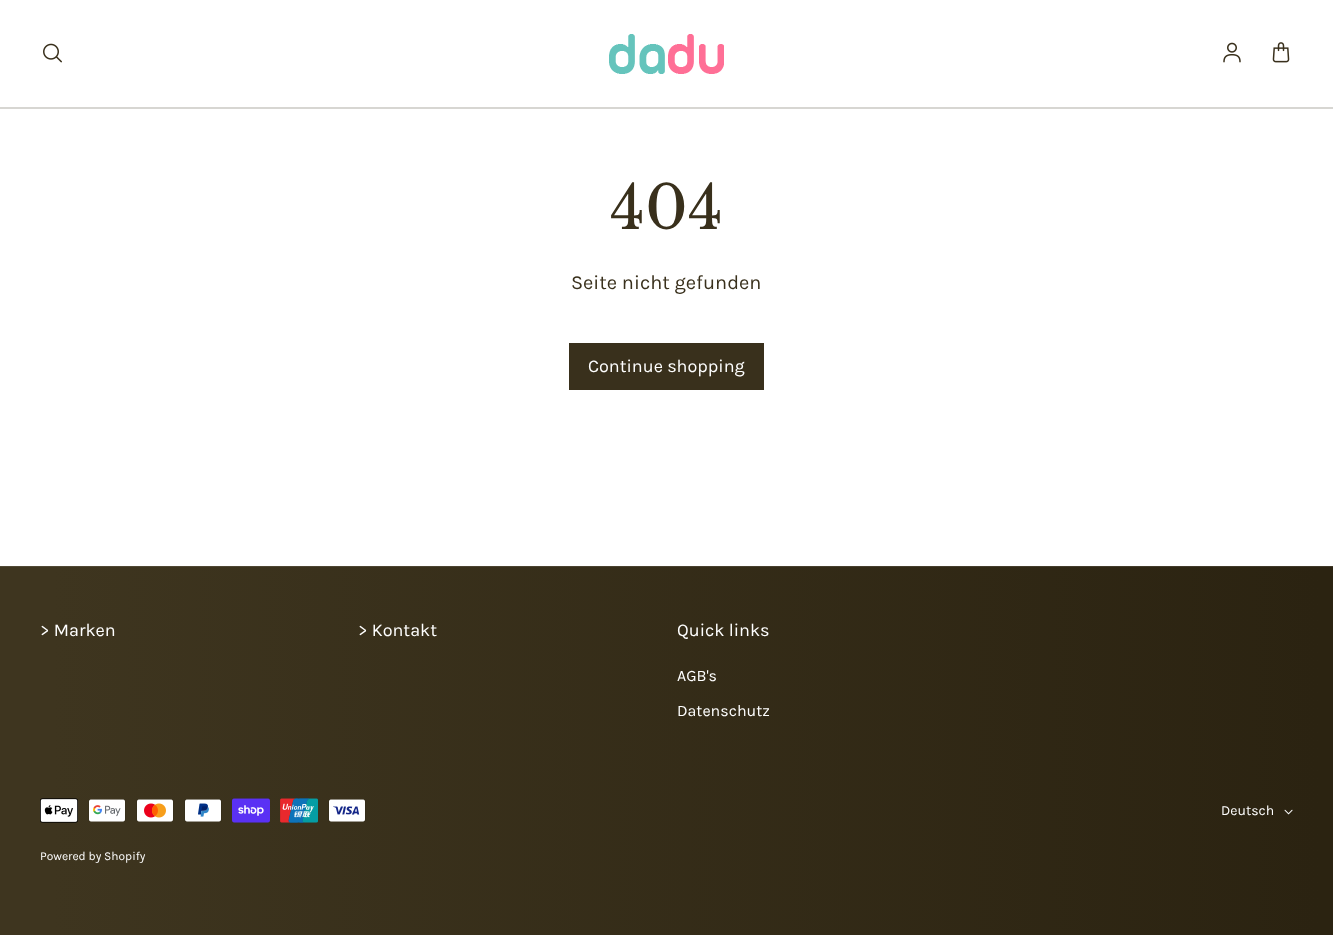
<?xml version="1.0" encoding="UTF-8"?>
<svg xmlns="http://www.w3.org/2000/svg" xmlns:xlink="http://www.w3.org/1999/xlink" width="1333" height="935">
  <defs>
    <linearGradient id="g1" gradientUnits="userSpaceOnUse" x1="0" y1="751" x2="1333" y2="751"><stop offset="0.04" stop-color="#3e351f" /><stop offset="0.99" stop-color="#2b2311" /></linearGradient>
    <linearGradient id="g2" gradientUnits="userSpaceOnUse" x1="0" y1="751" x2="1333" y2="751"><stop offset="0.04" stop-color="#514935" /><stop offset="0.99" stop-color="#403929" /></linearGradient>
  </defs>
  <rect width="100%" height="100%" fill="#ffffff" />
  <image x="43" y="43" width="19" height="20" xlink:href="image1.png" />
  <image x="609" y="34" width="115" height="40" xlink:href="image2.png" />
  <image x="1223" y="42" width="18" height="21" xlink:href="image3.png" />
  <image x="1272" y="42" width="18" height="21" xlink:href="image4.png" />
  <rect y="107" width="1333" height="2" fill="#d7d6d2" />
  <rect x="569" y="343" width="195" height="47" fill="#39301c" />
  <rect y="567" width="1333" height="368" fill="url(#g1)" />
  <rect y="566" width="1333" height="1" fill="url(#g2)" />
  <image x="40" y="798" width="38" height="25" xlink:href="image5.png" />
  <image x="88" y="799" width="38" height="23" xlink:href="image6.png" />
  <image x="136" y="799" width="38" height="23" xlink:href="image7.png" />
  <image x="184" y="799" width="38" height="23" xlink:href="image8.png" />
  <image x="232" y="798" width="38" height="25" xlink:href="image9.png" />
  <image x="280" y="798" width="38" height="25" xlink:href="image10.png" />
  <image x="328" y="799" width="38" height="23" xlink:href="image11.png" />
  <image x="1284" y="809" width="9" height="6" xlink:href="image12.png" />
  <text x="610" y="229" style="font-family: Libre Baskerville; font-size: 60px; fill: #39301c">404</text>
  <text x="571" y="289" style="font-family: Karla; font-size: 20px; fill: #39301c">Seite nicht gefunden</text>
  <text x="588" y="372" style="font-family: Karla; font-size: 18px; fill: #ffffff">Continue shopping</text>
  <text x="40" y="636" style="font-family: Karla; font-size: 18px; fill: #ffffff">&gt; Marken</text>
  <text x="358" y="636" style="font-family: Karla; font-size: 18px; fill: #ffffff">&gt; Kontakt</text>
  <text x="677" y="636" style="font-family: Karla; font-size: 18px; fill: #ffffff">Quick links</text>
  <text x="677" y="681" style="font-family: Karla; font-size: 16px; fill: #ffffff">AGB's</text>
  <text x="677" y="716" style="font-family: Karla; font-size: 16px; fill: #ffffff">Datenschutz</text>
  <text x="1221" y="815" style="font-family: Karla; font-size: 14px; fill: #ffffff">Deutsch</text>
  <text x="40" y="860" style="font-family: Karla; font-size: 12px; fill: #ffffff">Powered by Shopify</text>
</svg>
